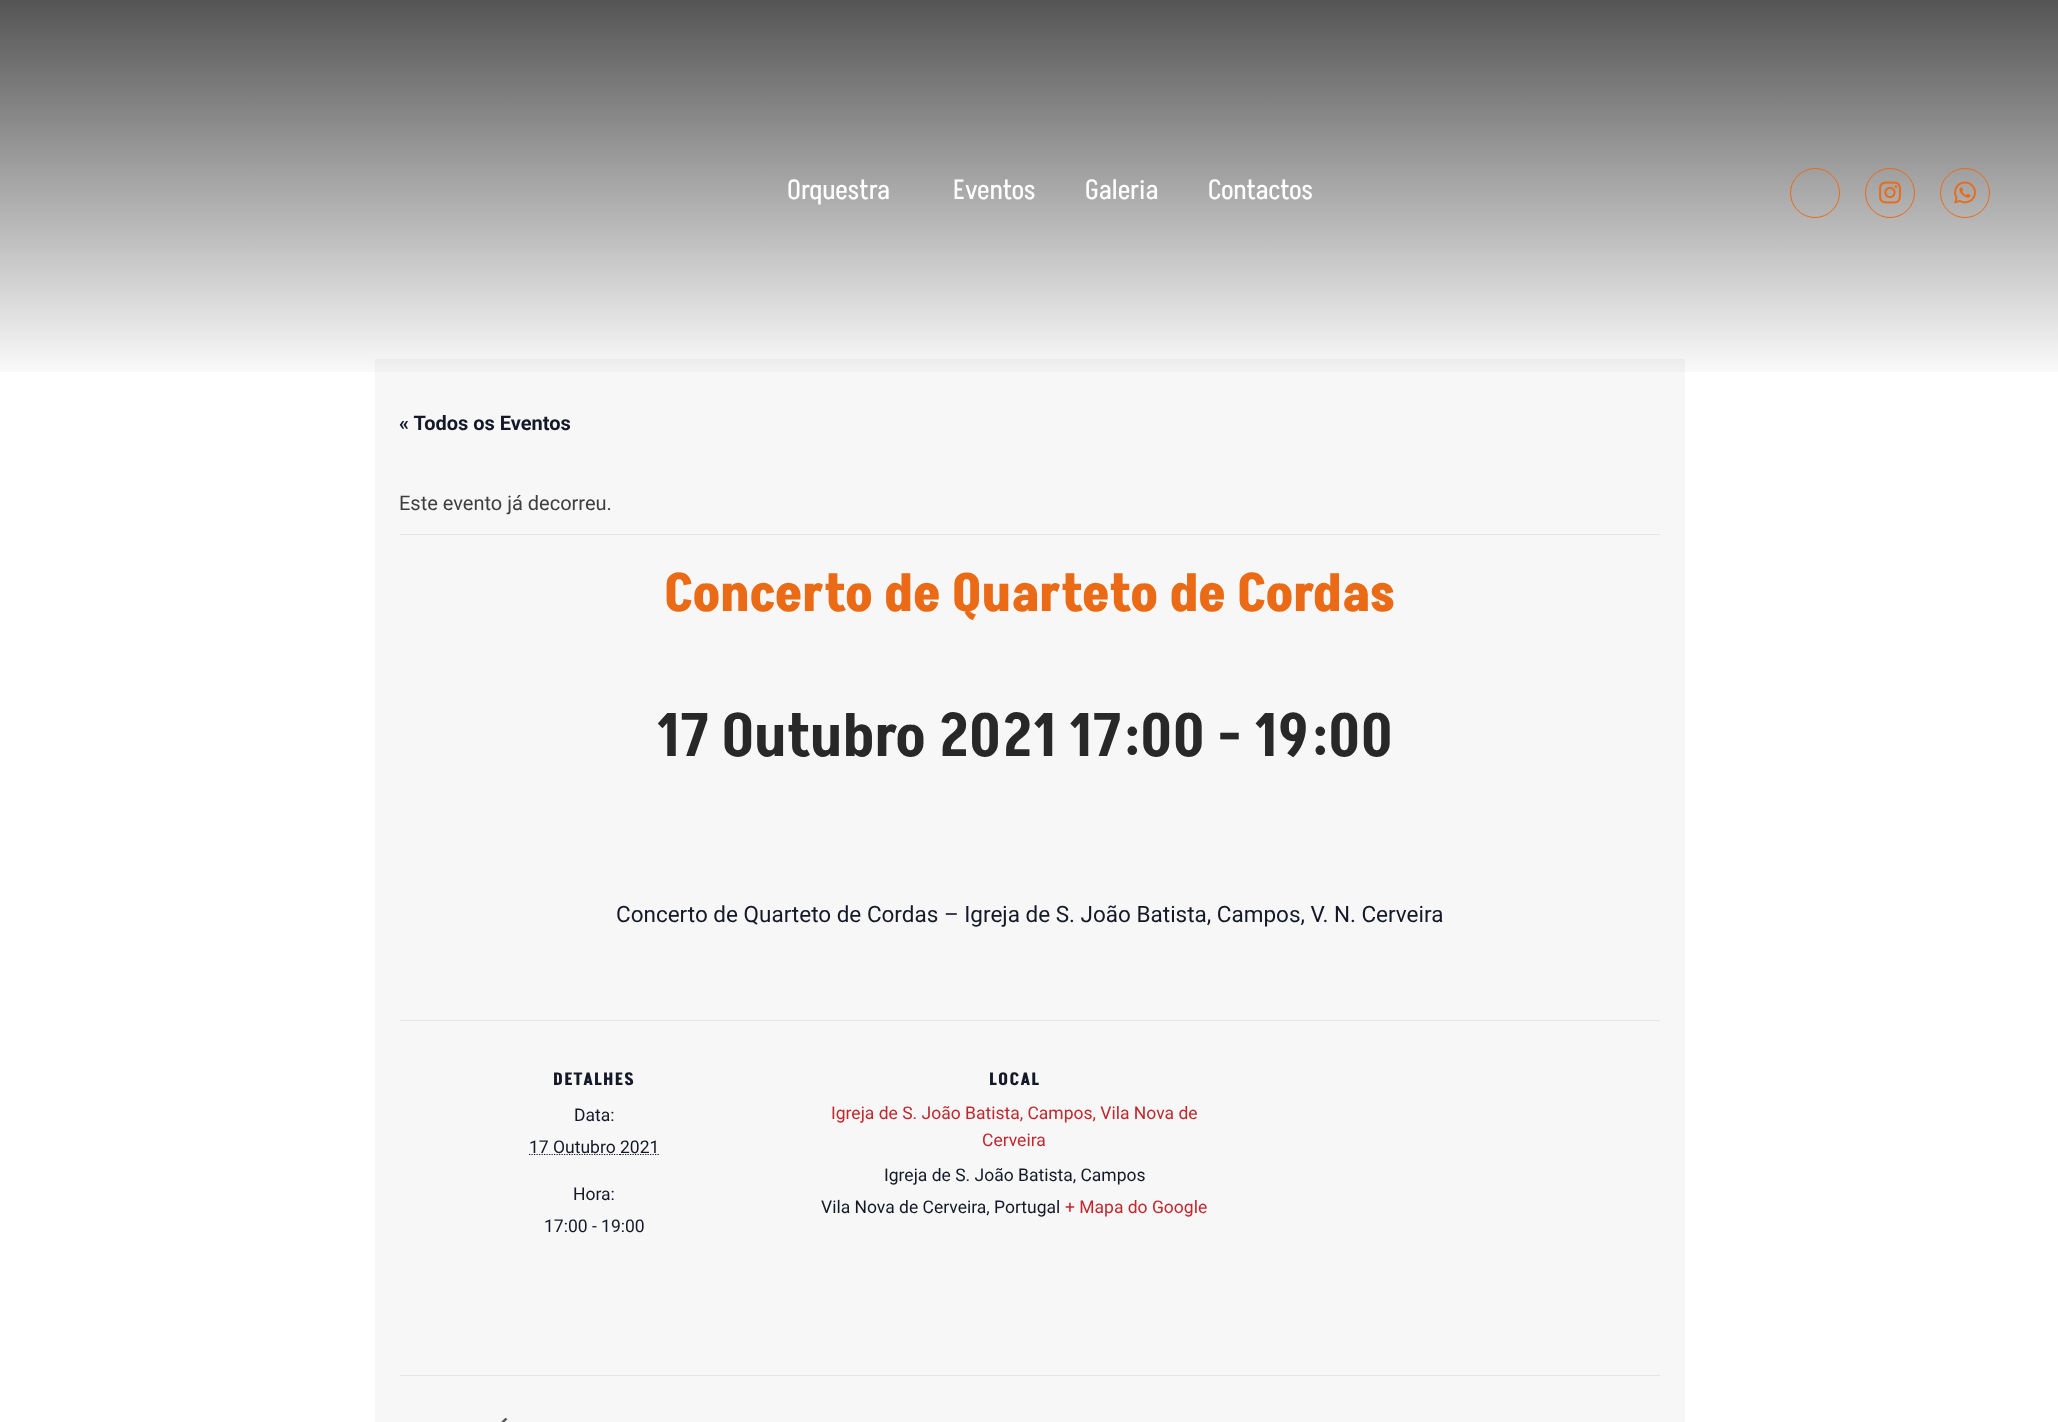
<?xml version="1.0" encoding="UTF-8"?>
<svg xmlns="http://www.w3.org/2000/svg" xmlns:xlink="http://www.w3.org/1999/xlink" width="2058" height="1422">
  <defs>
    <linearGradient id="g1" gradientUnits="userSpaceOnUse" x1="1029" y1="0" x2="1029" y2="384"><stop offset="0" stop-color="#000000" stop-opacity="0.67" /><stop offset="1" stop-color="#000000" stop-opacity="0" /></linearGradient>
  </defs>
  <rect width="100%" height="100%" fill="#ffffff" />
  <rect x="375" y="359" width="1310" height="1063" fill="#f7f7f7" />
  <rect width="2058" height="372" fill="url(#g1)" />
  <circle cx="1815" cy="193" r="24.5" fill="none" stroke="#ea6a15" />
  <circle cx="1890" cy="193" r="24.5" fill="none" stroke="#ea6a15" />
  <image x="1879" y="181" width="22" height="23" xlink:href="image1.png" />
  <circle cx="1965" cy="193" r="24.5" fill="none" stroke="#ea6a15" />
  <image x="1954" y="181" width="22" height="23" xlink:href="image2.png" />
  <rect x="400" y="534" width="1260" height="1" fill="#e4e4e4" />
  <rect x="400" y="1020" width="1260" height="1" fill="#e4e4e4" />
  <path d="M 529 1154.5 h 91" fill="none" stroke="#141827" stroke-width="1.2" stroke-dasharray="1.25 1.25" />
  <path d="M 620 1154.5 h 39.5" fill="none" stroke="#141827" stroke-width="1.2" stroke-dasharray="1.25 1.25" />
  <rect x="400" y="1375" width="1260" height="1" fill="#e4e4e4" />
  <image x="501" y="1418" width="7" height="4" xlink:href="image3.png" />
  <text x="787" y="199" style="font-family: Akshar; font-size: 27.5px; fill: #ffffff">Orquestra</text>
  <text x="953" y="199" style="font-family: Akshar; font-size: 27.5px; fill: #ffffff">Eventos</text>
  <text x="1085" y="199" style="font-family: Akshar; font-size: 27.5px; fill: #ffffff">Galeria</text>
  <text x="1208" y="199" style="font-family: Akshar; font-size: 27.5px; fill: #ffffff">Contactos</text>
  <text x="399" y="430" style="font-family: Roboto; font-size: 20px; font-weight: bold; fill: #141827">« Todos os Eventos</text>
  <text x="399" y="510" style="font-family: Roboto; font-size: 20px; fill: #3e3e3e">Este evento já decorreu.</text>
  <text x="664" y="611" style="font-family: Akshar; font-size: 52.5px; font-weight: bold; fill: #ea6a15">Concerto de Quarteto de Cordas</text>
  <text x="656" y="756" style="font-family: Akshar; font-size: 60px; font-weight: 600; fill: #282828">17 Outubro 2021 17:00 - 19:00</text>
  <text x="616" y="922" style="font-family: Roboto; font-size: 22.5px; fill: #141827">Concerto de Quarteto de Cordas – Igreja de S. João Batista, Campos, V. N. Cerveira</text>
  <text x="553" y="1085" style="font-family: Akshar; font-size: 17.5px; font-weight: bold; letter-spacing: 1.25px; fill: #141827">DETALHES</text>
  <text x="574" y="1121" style="font-family: Roboto; font-size: 17.5px; fill: #141827">Data:</text>
  <text x="529" y="1153" style="font-family: Roboto; font-size: 17.5px; fill: #141827">17 Outubro</text>
  <text x="620" y="1153" style="font-family: Roboto; font-size: 17.5px; fill: #141827">2021</text>
  <text x="573" y="1200" style="font-family: Roboto; font-size: 17.5px; fill: #141827">Hora:</text>
  <text x="544" y="1232" style="font-family: Roboto; font-size: 17.5px; fill: #141827">17:00 - 19:00</text>
  <text x="989" y="1085" style="font-family: Akshar; font-size: 17.5px; font-weight: bold; letter-spacing: 1.25px; fill: #141827">LOCAL</text>
  <text x="831" y="1119" style="font-family: Roboto; font-size: 17.5px; fill: #c1272d">Igreja de S. João Batista, Campos, Vila Nova de</text>
  <text x="982" y="1146" style="font-family: Roboto; font-size: 17.5px; fill: #c1272d">Cerveira</text>
  <text x="884" y="1181" style="font-family: Roboto; font-size: 17.5px; fill: #141827">Igreja de S. João Batista, Campos</text>
  <text x="821" y="1213" style="font-family: Roboto; font-size: 17.5px; fill: #141827">Vila Nova de Cerveira, Portugal</text>
  <text x="1065" y="1213" style="font-family: Roboto; font-size: 17.5px; fill: #c1272d">+ Mapa do Google</text>
</svg>
